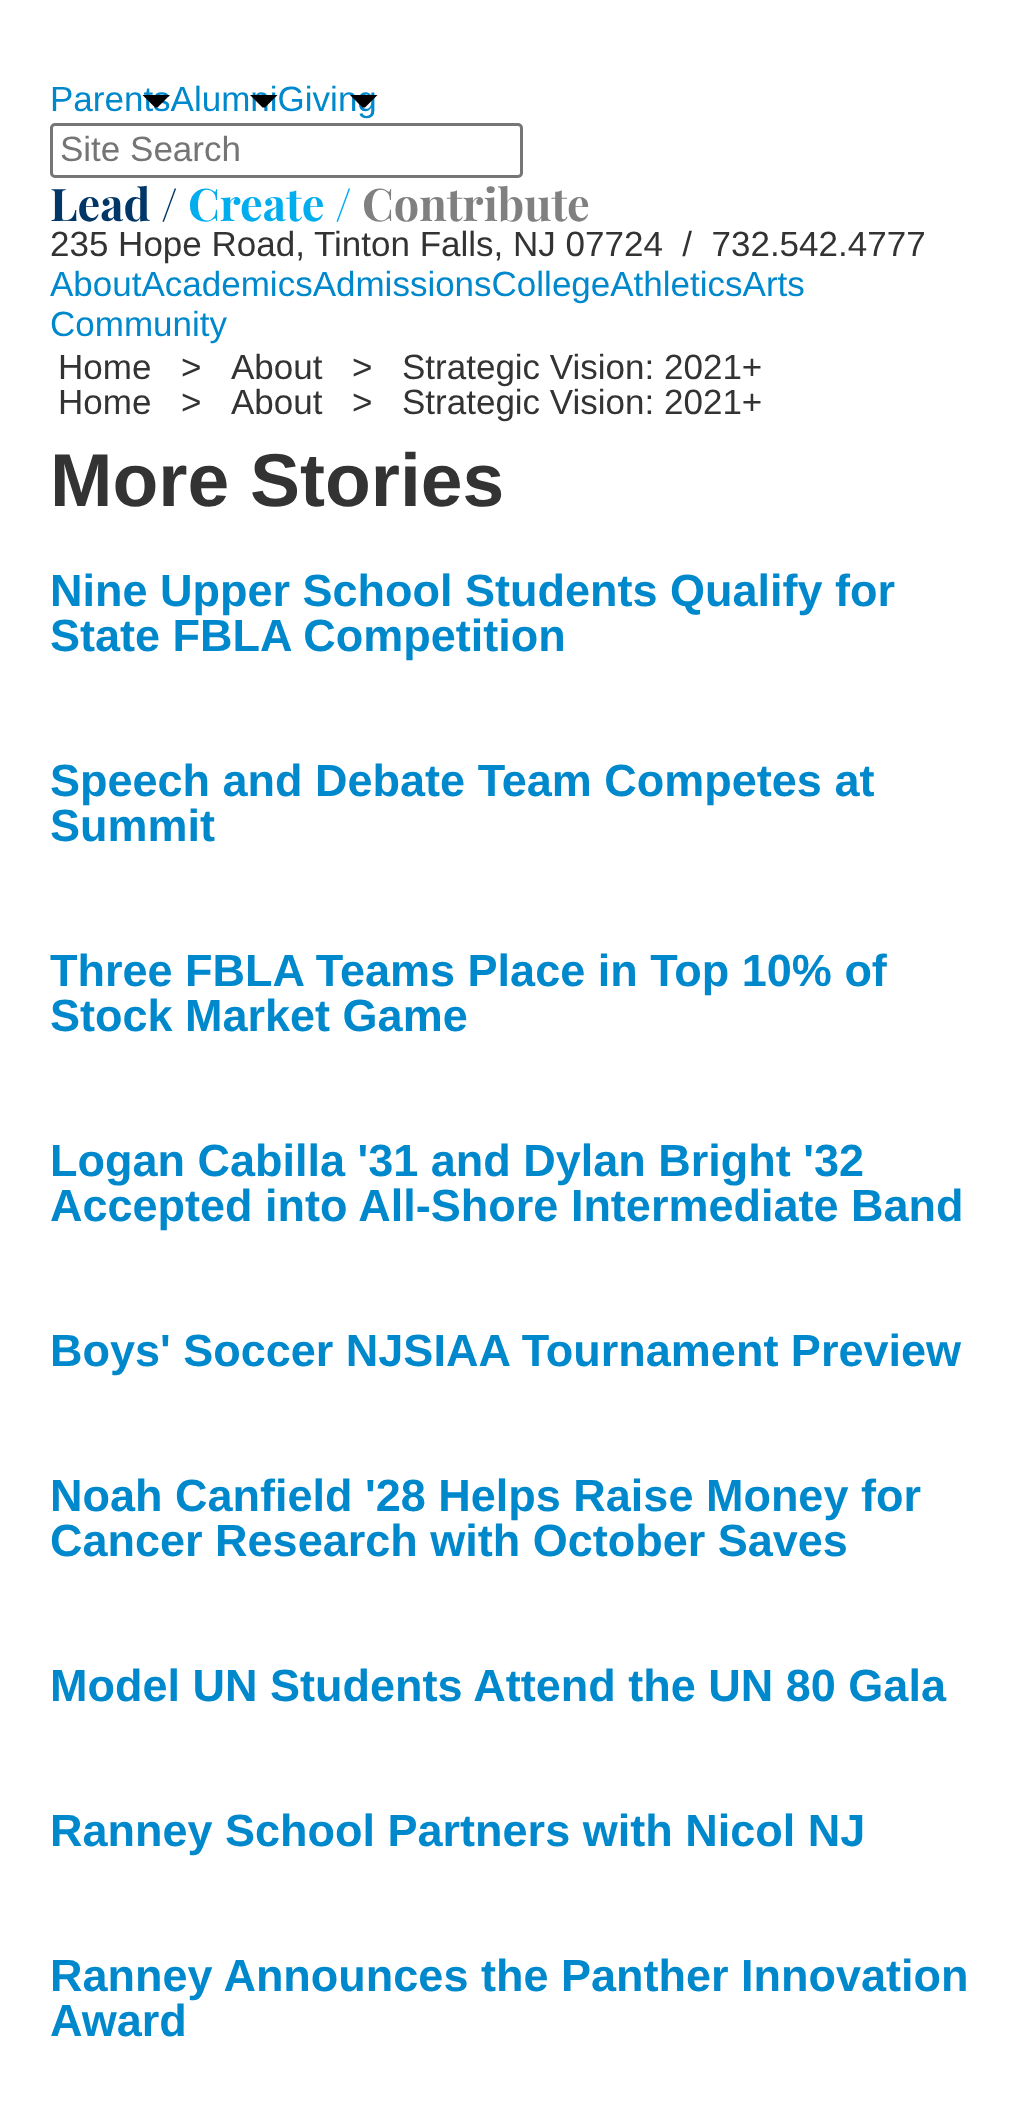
<?xml version="1.0" encoding="UTF-8"?>
<svg xmlns="http://www.w3.org/2000/svg" xmlns:xlink="http://www.w3.org/1999/xlink" width="1022" height="2109">
  <rect width="100%" height="100%" fill="#ffffff" />
  <rect x="51.5" y="124.5" width="470" height="52" rx="3.5" fill="none" stroke="#767676" stroke-width="3" />
  <text x="50" y="111" style="font-family: Liberation Sans; font-size: 35px; fill: #0088cc">ParentsAlumniGiving</text>
  <path d="M 142.5 95 h 27.5 l -12.5 12.5 h -2.5 z" fill="#000000" />
  <path d="M 250 95 h 27.5 l -12.5 12.5 h -2.5 z" fill="#000000" />
  <path d="M 350 95 h 27.5 l -12.5 12.5 h -2.5 z" fill="#000000" />
  <text x="60" y="161" style="font-family: Liberation Sans; font-size: 35px; fill: #757575">Site Search</text>
  <text x="50" y="221" style="font-family: Playfair Display; font-size: 45px; font-weight: bold; fill: #003767">Lead /</text>
  <text x="188" y="221" style="font-family: Playfair Display; font-size: 45px; font-weight: bold; fill: #00adee">Create /</text>
  <text x="362" y="221" style="font-family: Playfair Display; font-size: 45px; font-weight: bold; fill: #808080">Contribute</text>
  <text x="50" y="256" style="font-family: Liberation Sans; font-size: 35px; fill: #333333" xml:space="preserve">235 Hope Road, Tinton Falls, NJ 07724  /  732.542.4777</text>
  <text x="50" y="296" style="font-family: Liberation Sans; font-size: 35px; fill: #0088cc">AboutAcademicsAdmissionsCollegeAthleticsArts</text>
  <text x="50" y="336" style="font-family: Liberation Sans; font-size: 35px; fill: #0088cc">Community</text>
  <text x="58" y="379" style="font-family: Liberation Sans; font-size: 35px; fill: #333333">Home</text>
  <text x="181" y="379" style="font-family: Liberation Sans; font-size: 35px; fill: #333333">&gt;</text>
  <text x="231" y="379" style="font-family: Liberation Sans; font-size: 35px; fill: #333333">About</text>
  <text x="352" y="379" style="font-family: Liberation Sans; font-size: 35px; fill: #333333">&gt;</text>
  <text x="402" y="379" style="font-family: Liberation Sans; font-size: 35px; fill: #333333">Strategic Vision: 2021+</text>
  <text x="58" y="414" style="font-family: Liberation Sans; font-size: 35px; fill: #333333">Home</text>
  <text x="181" y="414" style="font-family: Liberation Sans; font-size: 35px; fill: #333333">&gt;</text>
  <text x="231" y="414" style="font-family: Liberation Sans; font-size: 35px; fill: #333333">About</text>
  <text x="352" y="414" style="font-family: Liberation Sans; font-size: 35px; fill: #333333">&gt;</text>
  <text x="402" y="414" style="font-family: Liberation Sans; font-size: 35px; fill: #333333">Strategic Vision: 2021+</text>
  <text x="50" y="506" style="font-family: Liberation Sans; font-size: 75px; font-weight: bold; fill: #333333">More Stories</text>
  <text x="50" y="606" style="font-family: Liberation Sans; font-size: 45px; font-weight: bold; fill: #0088cc">Nine Upper School Students Qualify for</text>
  <text x="50" y="651" style="font-family: Liberation Sans; font-size: 45px; font-weight: bold; fill: #0088cc">State FBLA Competition</text>
  <text x="50" y="796" style="font-family: Liberation Sans; font-size: 45px; font-weight: bold; fill: #0088cc">Speech and Debate Team Competes at</text>
  <text x="50" y="841" style="font-family: Liberation Sans; font-size: 45px; font-weight: bold; fill: #0088cc">Summit</text>
  <text x="50" y="986" style="font-family: Liberation Sans; font-size: 45px; font-weight: bold; fill: #0088cc">Three FBLA Teams Place in Top 10% of</text>
  <text x="50" y="1031" style="font-family: Liberation Sans; font-size: 45px; font-weight: bold; fill: #0088cc">Stock Market Game</text>
  <text x="50" y="1176" style="font-family: Liberation Sans; font-size: 45px; font-weight: bold; fill: #0088cc">Logan Cabilla '31 and Dylan Bright '32</text>
  <text x="50" y="1221" style="font-family: Liberation Sans; font-size: 45px; font-weight: bold; fill: #0088cc">Accepted into All-Shore Intermediate Band</text>
  <text x="50" y="1366" style="font-family: Liberation Sans; font-size: 45px; font-weight: bold; fill: #0088cc">Boys' Soccer NJSIAA Tournament Preview</text>
  <text x="50" y="1511" style="font-family: Liberation Sans; font-size: 45px; font-weight: bold; fill: #0088cc">Noah Canfield '28 Helps Raise Money for</text>
  <text x="50" y="1556" style="font-family: Liberation Sans; font-size: 45px; font-weight: bold; fill: #0088cc">Cancer Research with October Saves</text>
  <text x="50" y="1701" style="font-family: Liberation Sans; font-size: 45px; font-weight: bold; fill: #0088cc">Model UN Students Attend the UN 80 Gala</text>
  <text x="50" y="1846" style="font-family: Liberation Sans; font-size: 45px; font-weight: bold; fill: #0088cc">Ranney School Partners with Nicol NJ</text>
  <text x="50" y="1991" style="font-family: Liberation Sans; font-size: 45px; font-weight: bold; fill: #0088cc">Ranney Announces the Panther Innovation</text>
  <text x="50" y="2036" style="font-family: Liberation Sans; font-size: 45px; font-weight: bold; fill: #0088cc">Award</text>
</svg>
